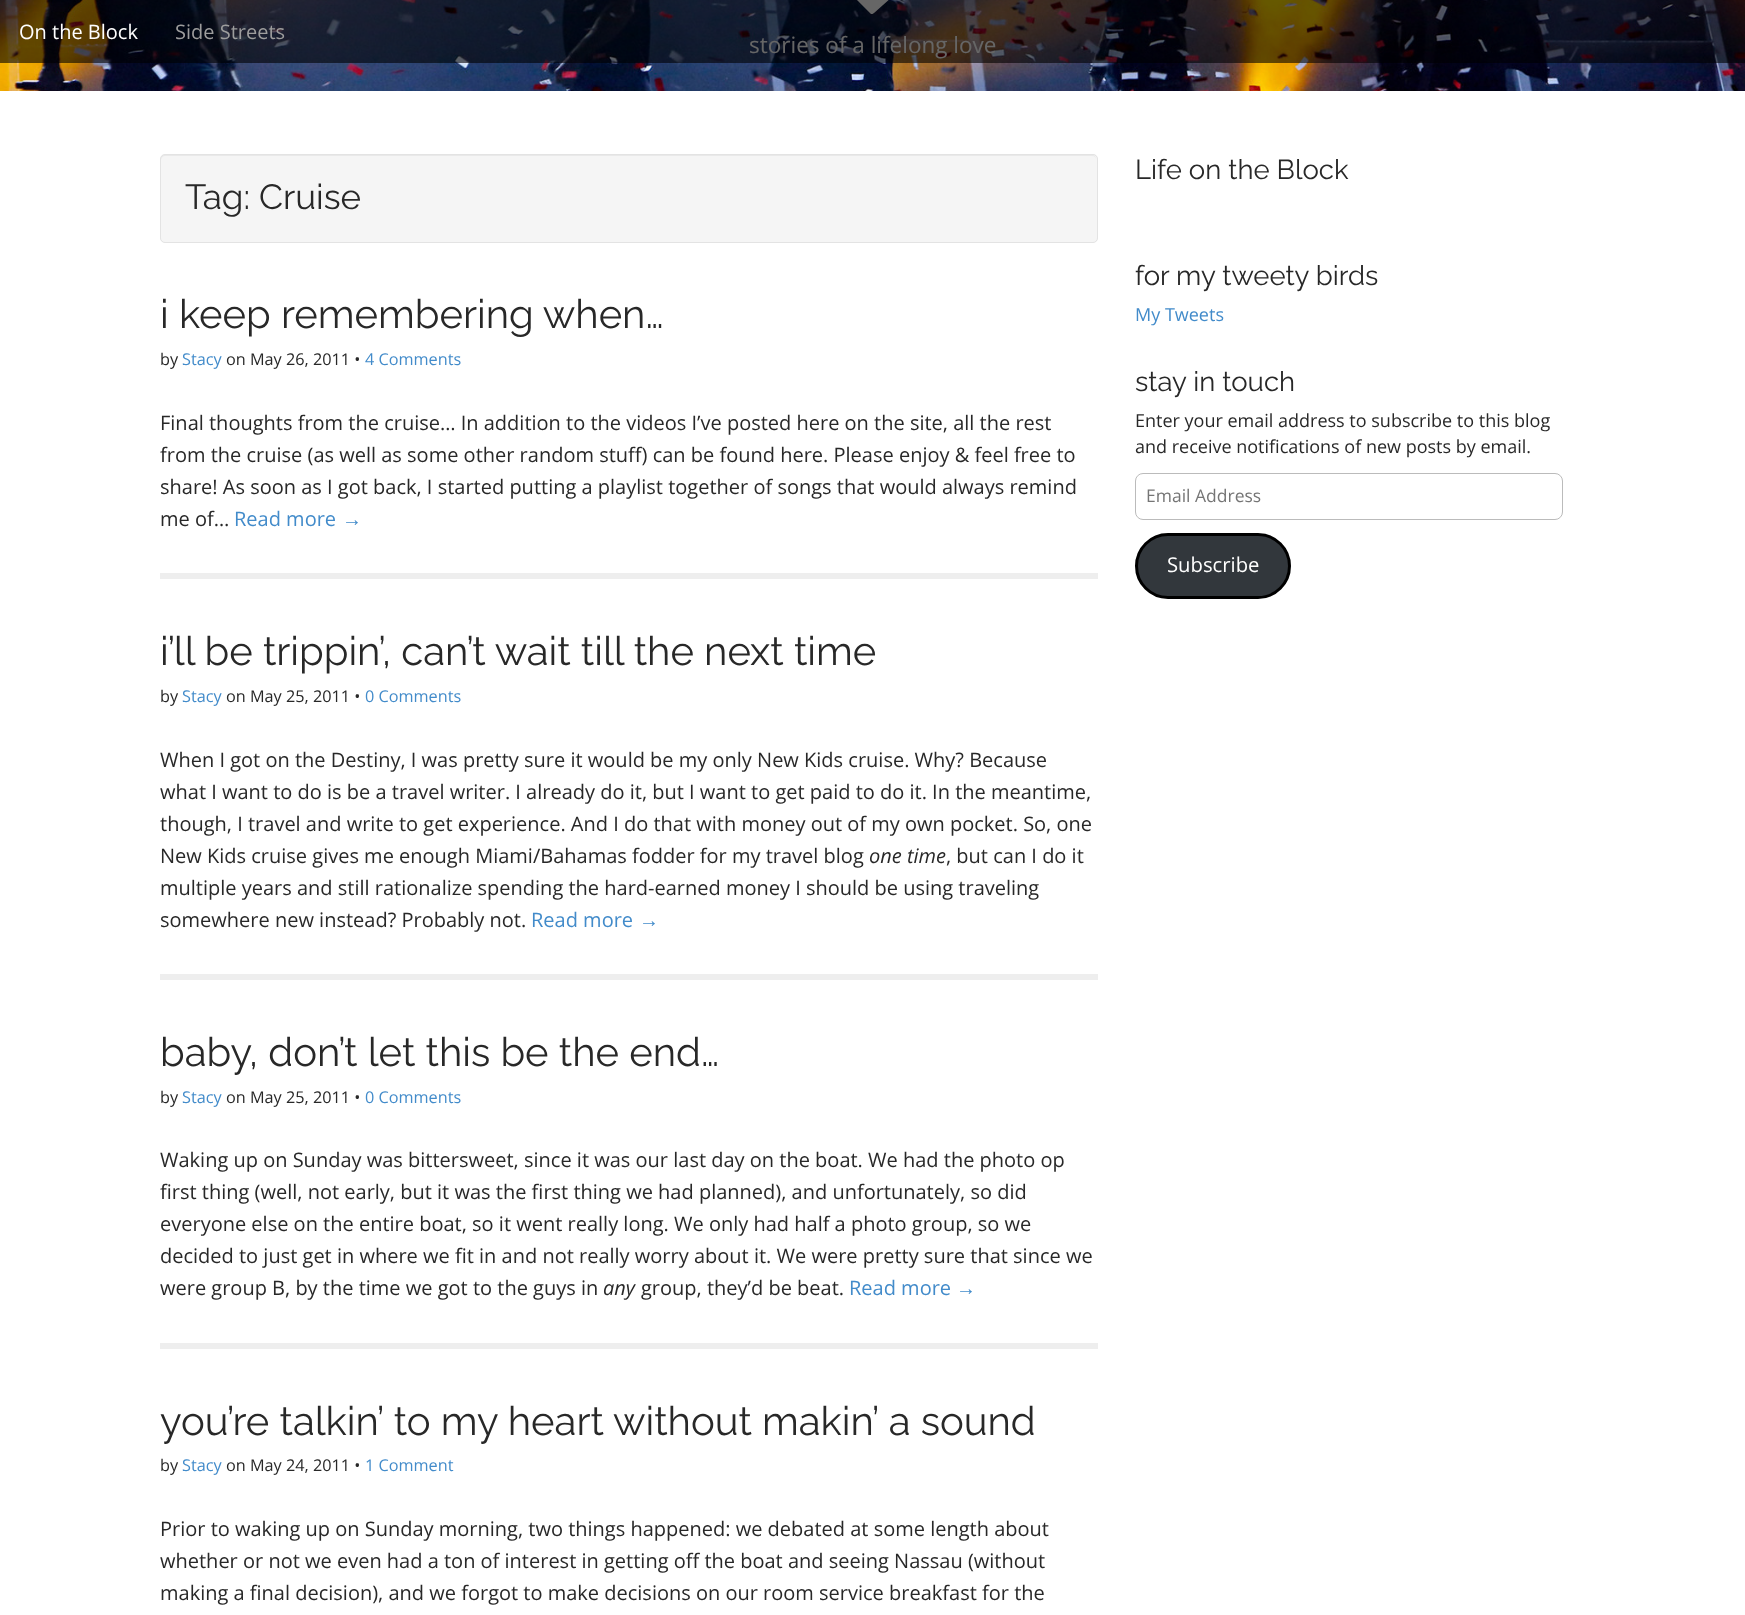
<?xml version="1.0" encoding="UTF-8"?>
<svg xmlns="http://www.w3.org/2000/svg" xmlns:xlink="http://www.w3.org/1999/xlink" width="1745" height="1615">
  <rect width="100%" height="100%" fill="#ffffff" />
  <image x="0" y="0" width="1745" height="91" xlink:href="image1.png" />
  <path d="M 874 13 c -1 1 -2 1 -3 1 l -13 -13 c -11 -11 -30 -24 -21 -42 c 3 -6 9 -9 16 -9 c 8 -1 14 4 19 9 c 8 -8 19 -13 30 -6 c 4 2 7 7 8 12 c 0 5 0 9 -2 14 c -4 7 -11 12 -16 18 z" fill="#ffffff" />
  <rect x="160" y="154" width="938" height="89" rx="5" fill="#f5f5f5" />
  <path d="M 165 156 h 927 c 3 0 4 2 4 4 c 0 -3 -1 -5 -4 -5 h -927 c -3 0 -4 2 -4 5 c 0 -2 2 -4 4 -4 z" fill="#e9e9e9" />
  <rect x="160.5" y="154.5" width="937" height="88" rx="4.5" fill="none" stroke="#e3e3e3" />
  <rect x="160" y="573" width="938" height="6" fill="#eeeeee" />
  <rect x="160" y="974" width="938" height="6" fill="#eeeeee" />
  <rect x="160" y="1343" width="938" height="6" fill="#eeeeee" />
  <rect x="1135.5" y="473.5" width="427" height="46" rx="7.5" fill="none" stroke="#bbbbbb" />
  <rect x="1136.5" y="534.5" width="153" height="63" rx="31.5" fill="#32373c" stroke="#000000" stroke-width="3" />
  <text x="749" y="53" style="font-family: Open Sans; font-size: 22.5px; fill: #ffffff">stories of a lifelong love</text>
  <rect width="1745" height="63" fill="#000000" fill-opacity="0.6" />
  <text x="175" y="39" style="font-family: Open Sans; font-size: 20px; fill: #9d9d9d">Side Streets</text>
  <text x="19" y="39" style="font-family: Open Sans; font-size: 20px; fill: #ffffff">On the Block</text>
  <text x="185" y="209" style="font-family: Raleway; font-size: 35px; font-weight: 100; fill: #282828">Tag: Cruise</text>
  <text x="160" y="328" style="font-family: Raleway; font-size: 40px; font-weight: 100; fill: #282828">i keep remembering when…</text>
  <text x="160" y="365" style="font-family: Open Sans; font-size: 16.25px; fill: #282828">by</text>
  <text x="182" y="365" style="font-family: Open Sans; font-size: 16.25px; fill: #428bca">Stacy</text>
  <text x="226" y="365" style="font-family: Open Sans; font-size: 16.25px; fill: #282828">on May 26, 2011 •</text>
  <text x="365" y="365" style="font-family: Open Sans; font-size: 16.25px; fill: #428bca">4 Comments</text>
  <text x="160" y="430" style="font-family: Open Sans; font-size: 20px; fill: #282828">Final thoughts from the cruise… In addition to the videos I’ve posted here on the site, all the rest</text>
  <text x="160" y="462" style="font-family: Open Sans; font-size: 20px; fill: #282828">from the cruise (as well as some other random stuff) can be found here. Please enjoy &amp; feel free to</text>
  <text x="160" y="494" style="font-family: Open Sans; font-size: 20px; fill: #282828">share! As soon as I got back, I started putting a playlist together of songs that would always remind</text>
  <text x="160" y="526" style="font-family: Open Sans; font-size: 20px; fill: #282828">me of…</text>
  <text x="234" y="526" style="font-family: Open Sans; font-size: 20px; fill: #428bca">Read more</text>
  <text x="342" y="526" style="font-family: Liberation Sans; font-size: 20px; fill: #428bca">→</text>
  <text x="160" y="665" style="font-family: Raleway; font-size: 40px; font-weight: 100; fill: #282828">i’ll be trippin’, can’t wait till the next time</text>
  <text x="160" y="702" style="font-family: Open Sans; font-size: 16.25px; fill: #282828">by</text>
  <text x="182" y="702" style="font-family: Open Sans; font-size: 16.25px; fill: #428bca">Stacy</text>
  <text x="226" y="702" style="font-family: Open Sans; font-size: 16.25px; fill: #282828">on May 25, 2011 •</text>
  <text x="365" y="702" style="font-family: Open Sans; font-size: 16.25px; fill: #428bca">0 Comments</text>
  <text x="160" y="767" style="font-family: Open Sans; font-size: 20px; fill: #282828">When I got on the Destiny, I was pretty sure it would be my only New Kids cruise. Why? Because</text>
  <text x="160" y="799" style="font-family: Open Sans; font-size: 20px; fill: #282828">what I want to do is be a travel writer. I already do it, but I want to get paid to do it. In the meantime,</text>
  <text x="160" y="831" style="font-family: Open Sans; font-size: 20px; fill: #282828">though, I travel and write to get experience. And I do that with money out of my own pocket. So, one</text>
  <text x="160" y="863" style="font-family: Open Sans; font-size: 20px; fill: #282828">New Kids cruise gives me enough Miami/Bahamas fodder for my travel blog</text>
  <text x="869" y="863" style="font-family: Open Sans; font-size: 20px; font-style: italic; fill: #282828">one time</text>
  <text x="946" y="863" style="font-family: Open Sans; font-size: 20px; fill: #282828">, but can I do it</text>
  <text x="160" y="895" style="font-family: Open Sans; font-size: 20px; fill: #282828">multiple years and still rationalize spending the hard-earned money I should be using traveling</text>
  <text x="160" y="927" style="font-family: Open Sans; font-size: 20px; fill: #282828">somewhere new instead? Probably not.</text>
  <text x="531" y="927" style="font-family: Open Sans; font-size: 20px; fill: #428bca">Read more</text>
  <text x="639" y="927" style="font-family: Liberation Sans; font-size: 20px; fill: #428bca">→</text>
  <text x="160" y="1066" style="font-family: Raleway; font-size: 40px; font-weight: 100; fill: #282828">baby, don’t let this be the end…</text>
  <text x="160" y="1103" style="font-family: Open Sans; font-size: 16.25px; fill: #282828">by</text>
  <text x="182" y="1103" style="font-family: Open Sans; font-size: 16.25px; fill: #428bca">Stacy</text>
  <text x="226" y="1103" style="font-family: Open Sans; font-size: 16.25px; fill: #282828">on May 25, 2011 •</text>
  <text x="365" y="1103" style="font-family: Open Sans; font-size: 16.25px; fill: #428bca">0 Comments</text>
  <text x="160" y="1167" style="font-family: Open Sans; font-size: 20px; fill: #282828">Waking up on Sunday was bittersweet, since it was our last day on the boat. We had the photo op</text>
  <text x="160" y="1199" style="font-family: Open Sans; font-size: 20px; fill: #282828">first thing (well, not early, but it was the first thing we had planned), and unfortunately, so did</text>
  <text x="160" y="1231" style="font-family: Open Sans; font-size: 20px; fill: #282828">everyone else on the entire boat, so it went really long. We only had half a photo group, so we</text>
  <text x="160" y="1263" style="font-family: Open Sans; font-size: 20px; fill: #282828">decided to just get in where we fit in and not really worry about it. We were pretty sure that since we</text>
  <text x="160" y="1295" style="font-family: Open Sans; font-size: 20px; fill: #282828">were group B, by the time we got to the guys in</text>
  <text x="603" y="1295" style="font-family: Open Sans; font-size: 20px; font-style: italic; fill: #282828">any</text>
  <text x="641" y="1295" style="font-family: Open Sans; font-size: 20px; fill: #282828">group, they’d be beat.</text>
  <text x="849" y="1295" style="font-family: Open Sans; font-size: 20px; fill: #428bca">Read more</text>
  <text x="956" y="1295" style="font-family: Liberation Sans; font-size: 20px; fill: #428bca">→</text>
  <text x="160" y="1435" style="font-family: Raleway; font-size: 40px; font-weight: 100; fill: #282828">you’re talkin’ to my heart without makin’ a sound</text>
  <text x="160" y="1471" style="font-family: Open Sans; font-size: 16.25px; fill: #282828">by</text>
  <text x="182" y="1471" style="font-family: Open Sans; font-size: 16.25px; fill: #428bca">Stacy</text>
  <text x="226" y="1471" style="font-family: Open Sans; font-size: 16.25px; fill: #282828">on May 24, 2011 •</text>
  <text x="365" y="1471" style="font-family: Open Sans; font-size: 16.25px; fill: #428bca">1 Comment</text>
  <text x="160" y="1536" style="font-family: Open Sans; font-size: 20px; fill: #282828">Prior to waking up on Sunday morning, two things happened: we debated at some length about</text>
  <text x="160" y="1568" style="font-family: Open Sans; font-size: 20px; fill: #282828">whether or not we even had a ton of interest in getting off the boat and seeing Nassau (without</text>
  <text x="160" y="1600" style="font-family: Open Sans; font-size: 20px; fill: #282828">making a final decision), and we forgot to make decisions on our room service breakfast for the</text>
  <text x="1135" y="179" style="font-family: Raleway; font-size: 27.5px; font-weight: 100; fill: #282828">Life on the Block</text>
  <text x="1135" y="285" style="font-family: Raleway; font-size: 27.5px; font-weight: 100; fill: #282828">for my tweety birds</text>
  <text x="1135" y="321" style="font-family: Open Sans; font-size: 18px; fill: #428bca">My Tweets</text>
  <text x="1135" y="391" style="font-family: Raleway; font-size: 27.5px; font-weight: 100; fill: #282828">stay in touch</text>
  <text x="1135" y="427" style="font-family: Open Sans; font-size: 18px; fill: #282828">Enter your email address to subscribe to this blog</text>
  <text x="1135" y="453" style="font-family: Open Sans; font-size: 18px; fill: #282828">and receive notifications of new posts by email.</text>
  <text x="1146" y="502" style="font-family: Open Sans; font-size: 17.5px; fill: #757575">Email Address</text>
  <text x="1167" y="572" style="font-family: Open Sans; font-size: 20.25px; fill: #ffffff">Subscribe</text>
</svg>
